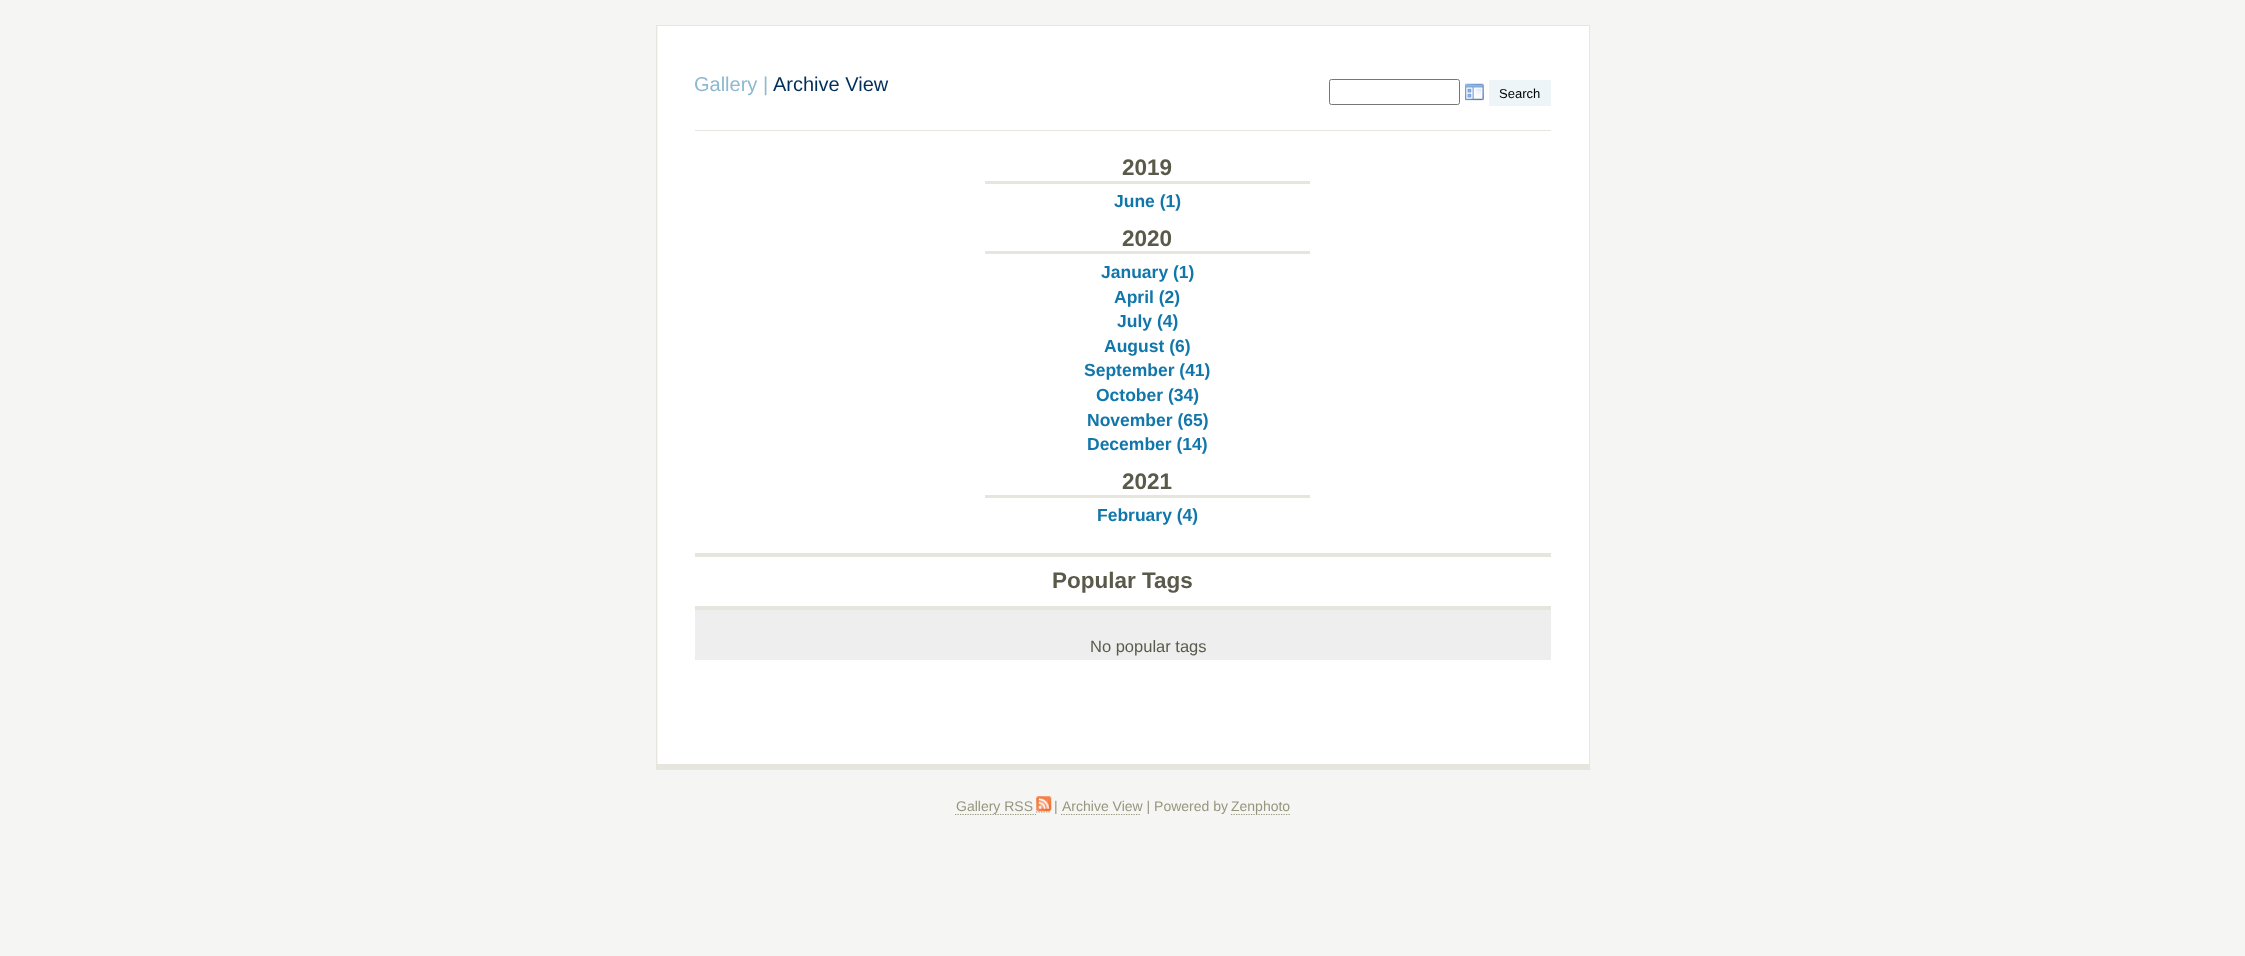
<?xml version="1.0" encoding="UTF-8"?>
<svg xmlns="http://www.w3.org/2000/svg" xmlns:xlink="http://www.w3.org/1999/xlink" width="2245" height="956">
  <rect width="100%" height="100%" fill="#f5f5f3" />
  <rect x="658" y="26" width="931" height="738" fill="#ffffff" />
  <rect x="656" y="25" width="934" height="1" fill="#e6e6df" />
  <rect x="1589" y="25" width="1" height="745" fill="#e6e6df" />
  <rect x="656" y="764" width="934" height="6" fill="#e6e6df" />
  <rect x="656" y="25" width="1" height="745" fill="#e6e6df" />
  <rect x="695" y="130" width="856" height="1" fill="#e6e6df" />
  <rect x="1329.5" y="79.5" width="130" height="25" rx="2" fill="none" stroke="#767676" />
  <image x="1465" y="83" width="19" height="18" xlink:href="image1.png" />
  <rect x="1489" y="80" width="62" height="26" fill="#eef5f9" />
  <rect x="985" y="181" width="325" height="3" fill="#e6e6df" />
  <rect x="985" y="251" width="325" height="3" fill="#e6e6df" />
  <rect x="985" y="495" width="325" height="3" fill="#e6e6df" />
  <rect x="695" y="610" width="856" height="50" fill="#eeeeee" />
  <rect x="695" y="553" width="856" height="4" fill="#e6e6df" />
  <rect x="695" y="606" width="856" height="4" fill="#e6e6df" />
  <path d="M 955 814.5 h 81" fill="none" stroke="#96967e" stroke-width="1.2" stroke-dasharray="1.25 1.25" />
  <path d="M 1036 812 h 15" fill="none" stroke="#96967e" stroke-width="1.2" stroke-dasharray="1.25 1.25" />
  <image x="1036" y="796" width="16" height="16" xlink:href="image2.png" />
  <path d="M 1061 814.5 h 80" fill="none" stroke="#96967e" stroke-width="1.2" stroke-dasharray="1.25 1.25" />
  <path d="M 1231 814.5 h 59" fill="none" stroke="#96967e" stroke-width="1.2" stroke-dasharray="1.25 1.25" />
  <text x="694" y="91" style="font-family: Liberation Sans; font-size: 20px; fill: #8db8cf">Gallery</text>
  <text x="763" y="91" style="font-family: Liberation Sans; font-size: 20px; fill: #8db8cf">|</text>
  <text x="773" y="91" style="font-family: Liberation Sans; font-size: 20px; fill: #002e5b">Archive View</text>
  <text x="1499" y="98" style="font-family: Liberation Sans; font-size: 13px; fill: #000000">Search</text>
  <text x="1122" y="175" style="font-family: Liberation Sans; font-size: 22.5px; font-weight: bold; fill: #5a5a4b">2019</text>
  <text x="1114" y="207" style="font-family: Liberation Sans; font-size: 17.5px; font-weight: bold; fill: #1177aa">June (1)</text>
  <text x="1122" y="246" style="font-family: Liberation Sans; font-size: 22.5px; font-weight: bold; fill: #5a5a4b">2020</text>
  <text x="1101" y="278" style="font-family: Liberation Sans; font-size: 17.5px; font-weight: bold; fill: #1177aa">January (1)</text>
  <text x="1114" y="303" style="font-family: Liberation Sans; font-size: 17.5px; font-weight: bold; fill: #1177aa">April (2)</text>
  <text x="1117" y="327" style="font-family: Liberation Sans; font-size: 17.5px; font-weight: bold; fill: #1177aa">July (4)</text>
  <text x="1104" y="352" style="font-family: Liberation Sans; font-size: 17.5px; font-weight: bold; fill: #1177aa">August (6)</text>
  <text x="1084" y="376" style="font-family: Liberation Sans; font-size: 17.5px; font-weight: bold; fill: #1177aa">September (41)</text>
  <text x="1096" y="401" style="font-family: Liberation Sans; font-size: 17.5px; font-weight: bold; fill: #1177aa">October (34)</text>
  <text x="1087" y="426" style="font-family: Liberation Sans; font-size: 17.5px; font-weight: bold; fill: #1177aa">November (65)</text>
  <text x="1087" y="450" style="font-family: Liberation Sans; font-size: 17.5px; font-weight: bold; fill: #1177aa">December (14)</text>
  <text x="1122" y="489" style="font-family: Liberation Sans; font-size: 22.5px; font-weight: bold; fill: #5a5a4b">2021</text>
  <text x="1097" y="521" style="font-family: Liberation Sans; font-size: 17.5px; font-weight: bold; fill: #1177aa">February (4)</text>
  <text x="1052" y="588" style="font-family: Liberation Sans; font-size: 22.5px; font-weight: bold; fill: #5a5a4b">Popular Tags</text>
  <text x="1090" y="652" style="font-family: Liberation Sans; font-size: 16.5px; fill: #5a5a4b">No popular tags</text>
  <text x="956" y="811" style="font-family: Liberation Sans; font-size: 14px; fill: #96967e">Gallery RSS</text>
  <text x="1054" y="811" style="font-family: Liberation Sans; font-size: 14px; fill: #96967e">|</text>
  <text x="1062" y="811" style="font-family: Liberation Sans; font-size: 14px; fill: #96967e">Archive View | Powered by</text>
  <text x="1231" y="811" style="font-family: Liberation Sans; font-size: 14px; fill: #96967e">Zenphoto</text>
</svg>
